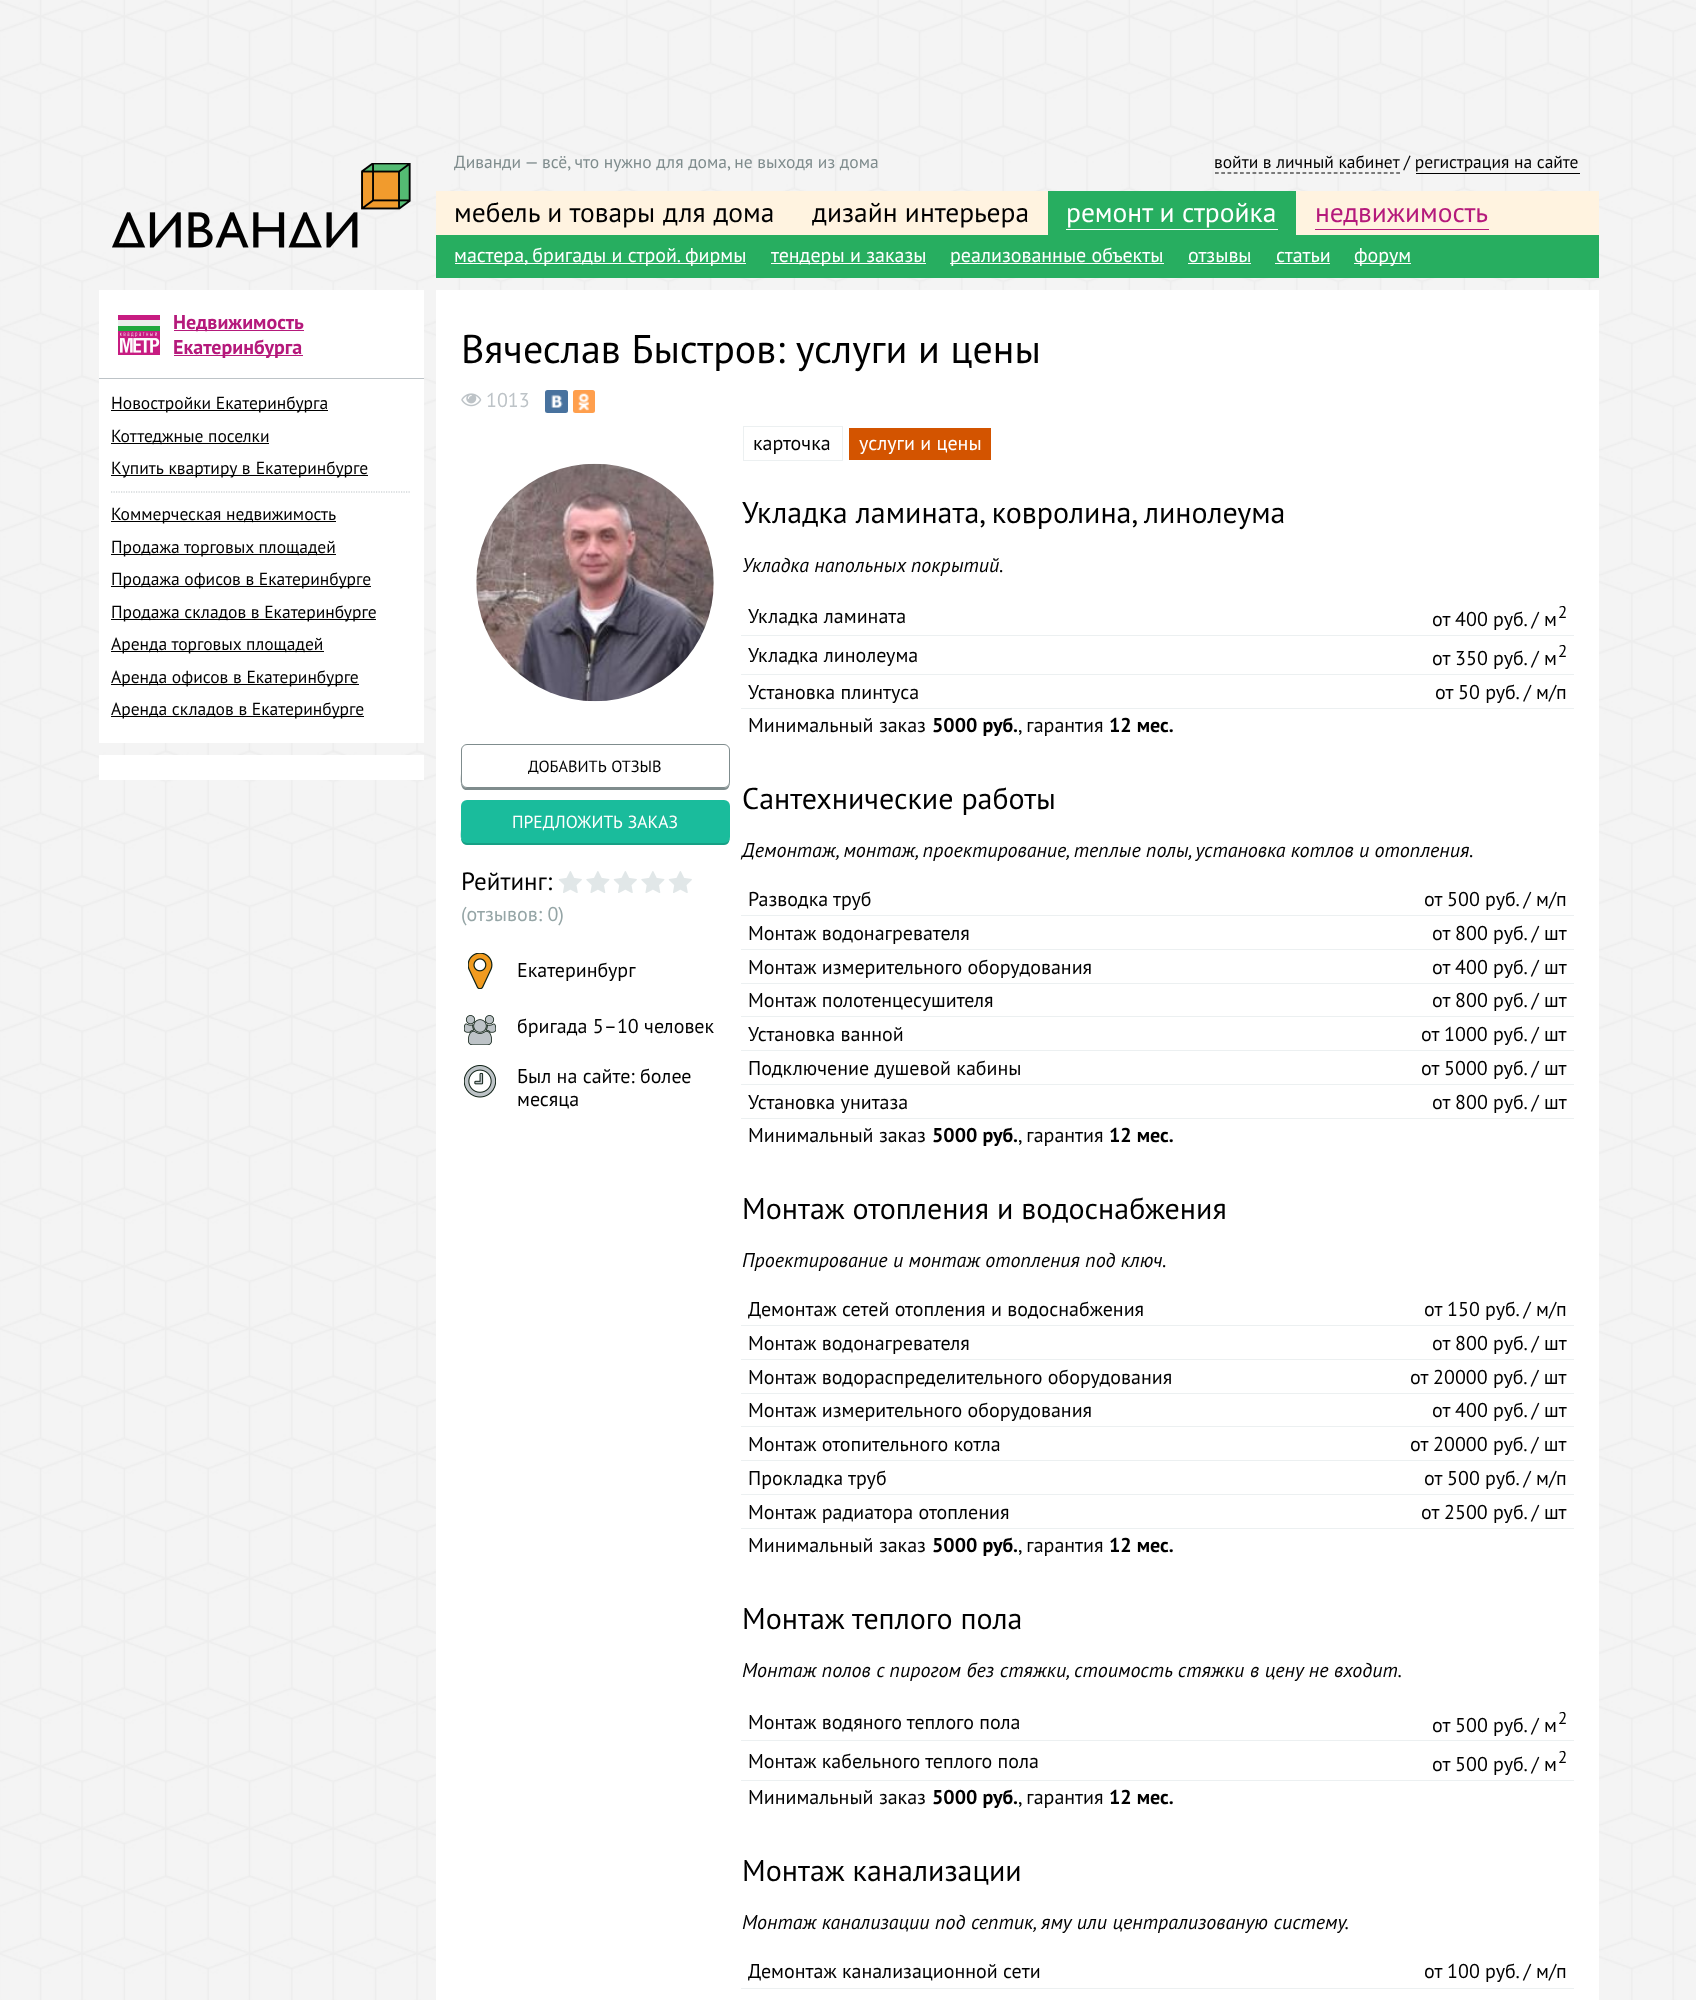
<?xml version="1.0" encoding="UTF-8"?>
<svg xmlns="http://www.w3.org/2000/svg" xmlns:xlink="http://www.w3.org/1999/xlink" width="1696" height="2000">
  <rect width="100%" height="100%" fill="#ffffff" />
  <image x="0" y="0" width="1696" height="2000" xlink:href="image1.png" />
  <image x="112" y="163" width="299" height="85" xlink:href="image2.png" />
  <path d="M 1215 173 h 185" fill="none" stroke="#000000" stroke-width="1.2" stroke-dasharray="3.75 2.5" />
  <rect x="1416" y="173" width="164" height="1" fill="#000000" />
  <rect x="436" y="191" width="1163" height="44" fill="#fff3e0" />
  <rect x="1048" y="191" width="248" height="44" fill="#27ae60" />
  <rect x="1066" y="229" width="212" height="1" fill="#ffffff" />
  <rect x="1315" y="229" width="174" height="1" fill="#b5197b" />
  <rect x="436" y="235" width="1163" height="43" fill="#27ae60" />
  <rect x="455" y="263" width="291" height="1" fill="#ffffff" />
  <rect x="771" y="263" width="155" height="1" fill="#ffffff" />
  <rect x="950" y="263" width="214" height="1" fill="#ffffff" />
  <rect x="1188" y="263" width="63" height="1" fill="#ffffff" />
  <rect x="1275" y="263" width="55" height="1" fill="#ffffff" />
  <rect x="1354" y="263" width="57" height="1" fill="#ffffff" />
  <rect x="99" y="290" width="325" height="453" fill="#ffffff" />
  <rect x="99" y="378" width="325" height="1" fill="#bdc3c7" />
  <image x="118" y="315" width="42" height="40" xlink:href="image3.png" />
  <rect x="174" y="330" width="130" height="1" fill="#b5197b" />
  <rect x="174" y="355" width="129" height="1" fill="#b5197b" />
  <rect x="111" y="410" width="217" height="1" fill="#000000" />
  <rect x="111" y="443" width="158" height="1" fill="#000000" />
  <rect x="111" y="475" width="257" height="1" fill="#000000" />
  <path d="M 111 492 h 300" fill="none" stroke="#bdc3c7" stroke-width="1.2" stroke-dasharray="1.25 1.25" />
  <rect x="111" y="521" width="225" height="1" fill="#000000" />
  <rect x="111" y="554" width="225" height="1" fill="#000000" />
  <rect x="111" y="586" width="260" height="1" fill="#000000" />
  <rect x="111" y="619" width="265" height="1" fill="#000000" />
  <rect x="111" y="651" width="213" height="1" fill="#000000" />
  <rect x="111" y="684" width="248" height="1" fill="#000000" />
  <rect x="111" y="716" width="253" height="1" fill="#000000" />
  <rect x="99" y="755" width="325" height="25" fill="#ffffff" />
  <rect x="436" y="290" width="1163" height="1710" fill="#ffffff" />
  <image x="461" y="393" width="21" height="14" xlink:href="image4.png" />
  <rect x="545" y="390" width="23" height="23" rx="2.5" fill="#48729e" />
  <image x="551" y="394" width="12" height="14" xlink:href="image5.png" />
  <rect x="573" y="390" width="22" height="23" rx="2.5" fill="#ff9f4d" />
  <image x="578" y="393" width="11" height="18" xlink:href="image6.png" />
  <image x="476" y="463" width="238" height="239" xlink:href="image7.png" />
  <path d="M 461 750 v 23 c 0 5 -2 17 6 17 h 257 c 5 0 6 -5 6 -9 c 0 4 -3 7 -6 7 h -256 c -4 0 -7 -3 -7 -7 z" fill="#7f8c8d" />
  <rect x="461.5" y="744.5" width="268" height="43" rx="5.5" fill="#ffffff" stroke="#7f8c8d" />
  <path d="M 461 807 v 22 c 0 5 -2 16 6 16 h 257 c 5 0 6 -5 6 -9 c 0 4 -3 6 -6 6 h -256 c -4 0 -7 -2 -7 -6 z" fill="#16a085" />
  <rect x="461" y="800" width="269" height="43" rx="6" fill="#1abc9c" />
  <image x="558" y="871" width="24" height="22" xlink:href="image8.png" />
  <image x="586" y="871" width="24" height="22" xlink:href="image9.png" />
  <image x="613" y="871" width="24" height="22" xlink:href="image8.png" />
  <image x="641" y="871" width="24" height="22" xlink:href="image9.png" />
  <image x="668" y="871" width="24" height="22" xlink:href="image8.png" />
  <image x="468" y="953" width="25" height="36" xlink:href="image10.png" />
  <image x="464" y="1015" width="32" height="30" xlink:href="image11.png" />
  <image x="464" y="1065" width="32" height="33" xlink:href="image12.png" />
  <rect x="743.5" y="426.5" width="99" height="34" fill="none" stroke="#ecf0f1" />
  <rect x="849" y="428" width="142" height="32" fill="#d35400" />
  <rect x="741" y="635" width="833" height="1" fill="#ecf0f1" />
  <rect x="741" y="674" width="833" height="1" fill="#ecf0f1" />
  <rect x="741" y="708" width="833" height="1" fill="#ecf0f1" />
  <rect x="741" y="915" width="833" height="1" fill="#ecf0f1" />
  <rect x="741" y="949" width="833" height="1" fill="#ecf0f1" />
  <rect x="741" y="983" width="833" height="1" fill="#ecf0f1" />
  <rect x="741" y="1016" width="833" height="1" fill="#ecf0f1" />
  <rect x="741" y="1050" width="833" height="1" fill="#ecf0f1" />
  <rect x="741" y="1084" width="833" height="1" fill="#ecf0f1" />
  <rect x="741" y="1118" width="833" height="1" fill="#ecf0f1" />
  <rect x="741" y="1325" width="833" height="1" fill="#ecf0f1" />
  <rect x="741" y="1359" width="833" height="1" fill="#ecf0f1" />
  <rect x="741" y="1393" width="833" height="1" fill="#ecf0f1" />
  <rect x="741" y="1426" width="833" height="1" fill="#ecf0f1" />
  <rect x="741" y="1460" width="833" height="1" fill="#ecf0f1" />
  <rect x="741" y="1494" width="833" height="1" fill="#ecf0f1" />
  <rect x="741" y="1528" width="833" height="1" fill="#ecf0f1" />
  <rect x="741" y="1740" width="833" height="1" fill="#ecf0f1" />
  <rect x="741" y="1780" width="833" height="1" fill="#ecf0f1" />
  <rect x="741" y="1988" width="833" height="1" fill="#ecf0f1" />
  <text x="454" y="168" style="font-family: PT Sans; font-size: 17.5px; fill: #7f8c8d">Диванди — всё, что нужно для дома, не выходя из дома</text>
  <text x="1214" y="168" style="font-family: PT Sans; font-size: 17.5px; fill: #000000">войти в личный кабинет / регистрация на сайте</text>
  <text x="454" y="222" word-spacing="0.5" style="font-family: PT Sans; font-size: 27.5px; fill: #000000">мебель и товары для дома</text>
  <text x="812" y="222" style="font-family: PT Sans; font-size: 27.5px; fill: #000000">дизайн интерьера</text>
  <text x="1066" y="222" style="font-family: PT Sans; font-size: 27.5px; fill: #ffffff">ремонт и стройка</text>
  <text x="1315" y="222" style="font-family: PT Sans; font-size: 27.5px; fill: #b5197b">недвижимость</text>
  <text x="454" y="262" style="font-family: PT Sans; font-size: 20px; fill: #ffffff">мастера, бригады и строй. фирмы</text>
  <text x="771" y="262" style="font-family: PT Sans; font-size: 20px; fill: #ffffff">тендеры и заказы</text>
  <text x="950" y="262" style="font-family: PT Sans; font-size: 20px; fill: #ffffff">реализованные объекты</text>
  <text x="1188" y="262" style="font-family: PT Sans; font-size: 20px; fill: #ffffff">отзывы</text>
  <text x="1276" y="262" style="font-family: PT Sans; font-size: 20px; fill: #ffffff">статьи</text>
  <text x="1354" y="262" style="font-family: PT Sans; font-size: 20px; fill: #ffffff">форум</text>
  <text x="173" y="329" style="font-family: PT Sans; font-size: 20px; font-weight: bold; fill: #b5197b">Недвижимость</text>
  <text x="173" y="354" style="font-family: PT Sans; font-size: 20px; font-weight: bold; fill: #b5197b">Екатеринбурга</text>
  <text x="111" y="409" style="font-family: PT Sans; font-size: 17.5px; fill: #000000">Новостройки Екатеринбурга</text>
  <text x="111" y="442" style="font-family: PT Sans; font-size: 17.5px; fill: #000000">Коттеджные поселки</text>
  <text x="111" y="474" word-spacing="0.5" style="font-family: PT Sans; font-size: 17.5px; fill: #000000">Купить квартиру в Екатеринбурге</text>
  <text x="111" y="520" style="font-family: PT Sans; font-size: 17.5px; fill: #000000">Коммерческая недвижимость</text>
  <text x="111" y="553" style="font-family: PT Sans; font-size: 17.5px; fill: #000000">Продажа торговых площадей</text>
  <text x="111" y="585" style="font-family: PT Sans; font-size: 17.5px; fill: #000000">Продажа офисов в Екатеринбурге</text>
  <text x="111" y="618" style="font-family: PT Sans; font-size: 17.5px; fill: #000000">Продажа складов в Екатеринбурге</text>
  <text x="111" y="650" style="font-family: PT Sans; font-size: 17.5px; fill: #000000">Аренда торговых площадей</text>
  <text x="111" y="683" style="font-family: PT Sans; font-size: 17.5px; fill: #000000">Аренда офисов в Екатеринбурге</text>
  <text x="111" y="715" style="font-family: PT Sans; font-size: 17.5px; fill: #000000">Аренда складов в Екатеринбурге</text>
  <text x="461" y="363" style="font-family: PT Sans; font-size: 40px; fill: #000000">Вячеслав Быстров: услуги и цены</text>
  <text x="486" y="407" style="font-family: PT Sans; font-size: 20px; fill: #bdc3c7">1013</text>
  <text x="528" y="772" word-spacing="1" style="font-family: PT Sans; font-size: 16.25px; fill: #000000">ДОБАВИТЬ ОТЗЫВ</text>
  <text x="512" y="828" word-spacing="1" style="font-family: PT Sans; font-size: 17.5px; fill: #ffffff">ПРЕДЛОЖИТЬ ЗАКАЗ</text>
  <text x="461" y="890" style="font-family: PT Sans; font-size: 25px; fill: #000000">Рейтинг:</text>
  <text x="461" y="921" style="font-family: PT Sans; font-size: 20px; fill: #95a5a6">(отзывов: 0)</text>
  <text x="517" y="977" style="font-family: PT Sans; font-size: 20px; fill: #000000">Екатеринбург</text>
  <text x="517" y="1033" style="font-family: PT Sans; font-size: 20px; fill: #000000">бригада 5–10 человек</text>
  <text x="517" y="1083" style="font-family: PT Sans; font-size: 20px; fill: #000000">Был на сайте: более</text>
  <text x="517" y="1106" style="font-family: PT Sans; font-size: 20px; fill: #000000">месяца</text>
  <text x="753" y="450" style="font-family: PT Sans; font-size: 20px; fill: #000000">карточка</text>
  <text x="859" y="450" style="font-family: PT Sans; font-size: 20px; fill: #ffffff">услуги и цены</text>
  <text x="742" y="523" style="font-family: PT Sans; font-size: 30px; fill: #000000">Укладка ламината, ковролина, линолеума</text>
  <text x="742" y="572" style="font-family: PT Sans; font-size: 20px; font-style: italic; fill: #000000">Укладка напольных покрытий.</text>
  <text x="748" y="623" style="font-family: PT Sans; font-size: 20px; fill: #000000">Укладка ламината</text>
  <text x="1432" y="626" style="font-family: PT Sans; font-size: 20px; fill: #000000">от 400 руб. / м</text>
  <text x="1558" y="618" style="font-family: PT Sans; font-size: 17px; fill: #000000">2</text>
  <text x="748" y="662" style="font-family: PT Sans; font-size: 20px; fill: #000000">Укладка линолеума</text>
  <text x="1432" y="665" style="font-family: PT Sans; font-size: 20px; fill: #000000">от 350 руб. / м</text>
  <text x="1558" y="657" style="font-family: PT Sans; font-size: 17px; fill: #000000">2</text>
  <text x="748" y="699" style="font-family: PT Sans; font-size: 20px; fill: #000000">Установка плинтуса</text>
  <text x="1435" y="699" style="font-family: PT Sans; font-size: 20px; fill: #000000">от 50 руб. / м/п</text>
  <text x="748" y="732" style="font-family: PT Sans; font-size: 20px; fill: #000000">Минимальный заказ</text>
  <text x="932" y="732" style="font-family: PT Sans; font-size: 20px; font-weight: bold; fill: #000000">5000 руб.</text>
  <text x="1018" y="732" style="font-family: PT Sans; font-size: 20px; fill: #000000">, гарантия</text>
  <text x="1109" y="732" style="font-family: PT Sans; font-size: 20px; font-weight: bold; fill: #000000">12 мес.</text>
  <text x="742" y="809" style="font-family: PT Sans; font-size: 30px; fill: #000000">Сантехнические работы</text>
  <text x="742" y="857" style="font-family: PT Sans; font-size: 20px; font-style: italic; fill: #000000">Демонтаж, монтаж, проектирование, теплые полы, установка котлов и отопления.</text>
  <text x="748" y="906" style="font-family: PT Sans; font-size: 20px; fill: #000000">Разводка труб</text>
  <text x="1424" y="906" style="font-family: PT Sans; font-size: 20px; fill: #000000">от 500 руб. / м/п</text>
  <text x="748" y="940" style="font-family: PT Sans; font-size: 20px; fill: #000000">Монтаж водонагревателя</text>
  <text x="1432" y="940" style="font-family: PT Sans; font-size: 20px; fill: #000000">от 800 руб. / шт</text>
  <text x="748" y="974" style="font-family: PT Sans; font-size: 20px; fill: #000000">Монтаж измерительного оборудования</text>
  <text x="1432" y="974" style="font-family: PT Sans; font-size: 20px; fill: #000000">от 400 руб. / шт</text>
  <text x="748" y="1007" style="font-family: PT Sans; font-size: 20px; fill: #000000">Монтаж полотенцесушителя</text>
  <text x="1432" y="1007" style="font-family: PT Sans; font-size: 20px; fill: #000000">от 800 руб. / шт</text>
  <text x="748" y="1041" style="font-family: PT Sans; font-size: 20px; fill: #000000">Установка ванной</text>
  <text x="1421" y="1041" style="font-family: PT Sans; font-size: 20px; fill: #000000">от 1000 руб. / шт</text>
  <text x="748" y="1075" style="font-family: PT Sans; font-size: 20px; fill: #000000">Подключение душевой кабины</text>
  <text x="1421" y="1075" style="font-family: PT Sans; font-size: 20px; fill: #000000">от 5000 руб. / шт</text>
  <text x="748" y="1109" style="font-family: PT Sans; font-size: 20px; fill: #000000">Установка унитаза</text>
  <text x="1432" y="1109" style="font-family: PT Sans; font-size: 20px; fill: #000000">от 800 руб. / шт</text>
  <text x="748" y="1142" style="font-family: PT Sans; font-size: 20px; fill: #000000">Минимальный заказ</text>
  <text x="932" y="1142" style="font-family: PT Sans; font-size: 20px; font-weight: bold; fill: #000000">5000 руб.</text>
  <text x="1018" y="1142" style="font-family: PT Sans; font-size: 20px; fill: #000000">, гарантия</text>
  <text x="1109" y="1142" style="font-family: PT Sans; font-size: 20px; font-weight: bold; fill: #000000">12 мес.</text>
  <text x="742" y="1219" style="font-family: PT Sans; font-size: 30px; fill: #000000">Монтаж отопления и водоснабжения</text>
  <text x="742" y="1267" style="font-family: PT Sans; font-size: 20px; font-style: italic; fill: #000000">Проектирование и монтаж отопления под ключ.</text>
  <text x="748" y="1316" style="font-family: PT Sans; font-size: 20px; fill: #000000">Демонтаж сетей отопления и водоснабжения</text>
  <text x="1424" y="1316" style="font-family: PT Sans; font-size: 20px; fill: #000000">от 150 руб. / м/п</text>
  <text x="748" y="1350" style="font-family: PT Sans; font-size: 20px; fill: #000000">Монтаж водонагревателя</text>
  <text x="1432" y="1350" style="font-family: PT Sans; font-size: 20px; fill: #000000">от 800 руб. / шт</text>
  <text x="748" y="1384" style="font-family: PT Sans; font-size: 20px; fill: #000000">Монтаж водораспределительного оборудования</text>
  <text x="1410" y="1384" style="font-family: PT Sans; font-size: 20px; fill: #000000">от 20000 руб. / шт</text>
  <text x="748" y="1417" style="font-family: PT Sans; font-size: 20px; fill: #000000">Монтаж измерительного оборудования</text>
  <text x="1432" y="1417" style="font-family: PT Sans; font-size: 20px; fill: #000000">от 400 руб. / шт</text>
  <text x="748" y="1451" style="font-family: PT Sans; font-size: 20px; fill: #000000">Монтаж отопительного котла</text>
  <text x="1410" y="1451" style="font-family: PT Sans; font-size: 20px; fill: #000000">от 20000 руб. / шт</text>
  <text x="748" y="1485" style="font-family: PT Sans; font-size: 20px; fill: #000000">Прокладка труб</text>
  <text x="1424" y="1485" style="font-family: PT Sans; font-size: 20px; fill: #000000">от 500 руб. / м/п</text>
  <text x="748" y="1519" style="font-family: PT Sans; font-size: 20px; fill: #000000">Монтаж радиатора отопления</text>
  <text x="1421" y="1519" style="font-family: PT Sans; font-size: 20px; fill: #000000">от 2500 руб. / шт</text>
  <text x="748" y="1552" style="font-family: PT Sans; font-size: 20px; fill: #000000">Минимальный заказ</text>
  <text x="932" y="1552" style="font-family: PT Sans; font-size: 20px; font-weight: bold; fill: #000000">5000 руб.</text>
  <text x="1018" y="1552" style="font-family: PT Sans; font-size: 20px; fill: #000000">, гарантия</text>
  <text x="1109" y="1552" style="font-family: PT Sans; font-size: 20px; font-weight: bold; fill: #000000">12 мес.</text>
  <text x="742" y="1629" style="font-family: PT Sans; font-size: 30px; fill: #000000">Монтаж теплого пола</text>
  <text x="742" y="1677" word-spacing="0.25" style="font-family: PT Sans; font-size: 20px; font-style: italic; fill: #000000">Монтаж полов с пирогом без стяжки, стоимость стяжки в цену не входит.</text>
  <text x="748" y="1729" style="font-family: PT Sans; font-size: 20px; fill: #000000">Монтаж водяного теплого пола</text>
  <text x="1432" y="1732" style="font-family: PT Sans; font-size: 20px; fill: #000000">от 500 руб. / м</text>
  <text x="1558" y="1724" style="font-family: PT Sans; font-size: 17px; fill: #000000">2</text>
  <text x="748" y="1768" style="font-family: PT Sans; font-size: 20px; fill: #000000">Монтаж кабельного теплого пола</text>
  <text x="1432" y="1771" style="font-family: PT Sans; font-size: 20px; fill: #000000">от 500 руб. / м</text>
  <text x="1558" y="1763" style="font-family: PT Sans; font-size: 17px; fill: #000000">2</text>
  <text x="748" y="1804" style="font-family: PT Sans; font-size: 20px; fill: #000000">Минимальный заказ</text>
  <text x="932" y="1804" style="font-family: PT Sans; font-size: 20px; font-weight: bold; fill: #000000">5000 руб.</text>
  <text x="1018" y="1804" style="font-family: PT Sans; font-size: 20px; fill: #000000">, гарантия</text>
  <text x="1109" y="1804" style="font-family: PT Sans; font-size: 20px; font-weight: bold; fill: #000000">12 мес.</text>
  <text x="742" y="1881" style="font-family: PT Sans; font-size: 30px; fill: #000000">Монтаж канализации</text>
  <text x="742" y="1929" word-spacing="0.25" style="font-family: PT Sans; font-size: 20px; font-style: italic; fill: #000000">Монтаж канализации под септик, яму или централизованую систему.</text>
  <text x="748" y="1978" style="font-family: PT Sans; font-size: 20px; fill: #000000">Демонтаж канализационной сети</text>
  <text x="1424" y="1978" style="font-family: PT Sans; font-size: 20px; fill: #000000">от 100 руб. / м/п</text>
</svg>
